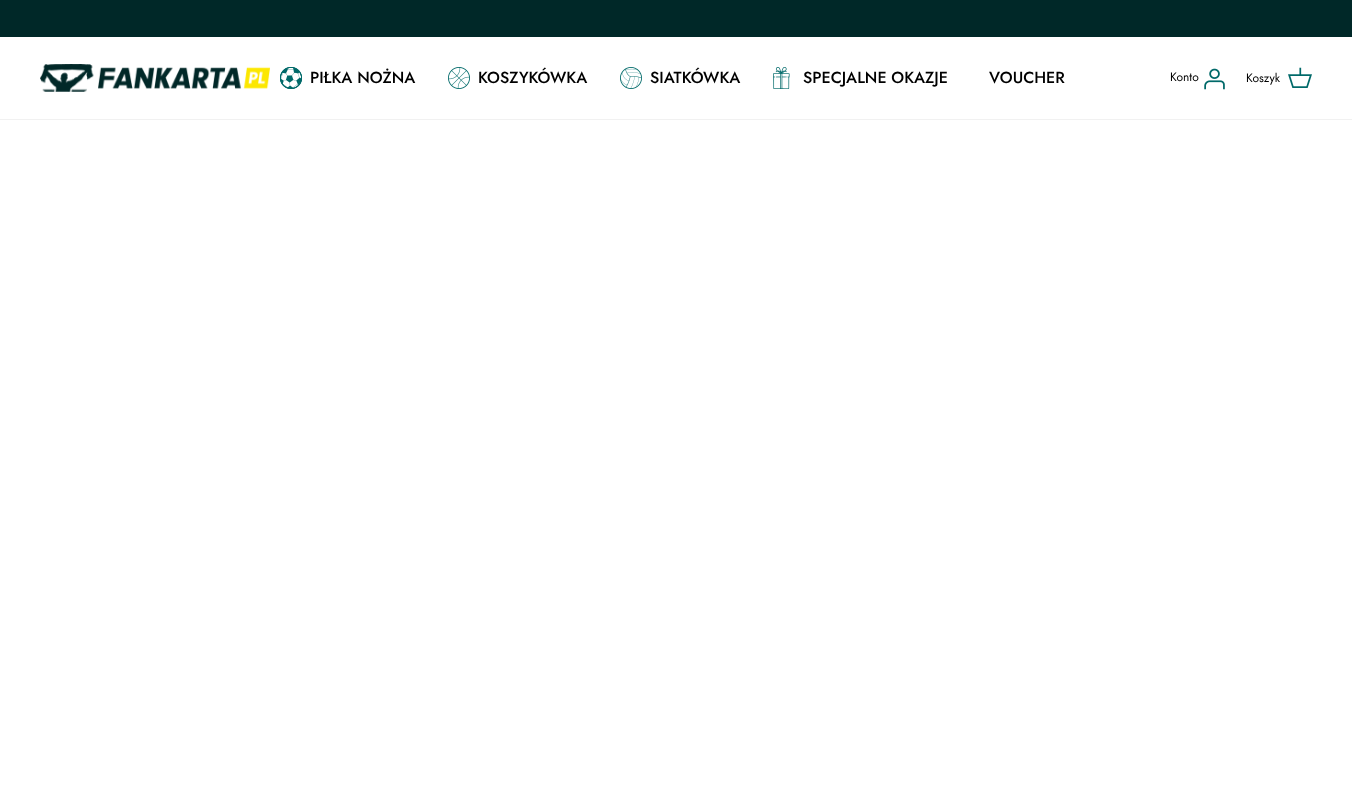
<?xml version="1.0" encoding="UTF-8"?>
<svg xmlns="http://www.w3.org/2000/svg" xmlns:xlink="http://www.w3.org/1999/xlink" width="1352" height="801">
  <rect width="100%" height="100%" fill="#ffffff" />
  <rect width="1352" height="37" fill="#002828" />
  <rect y="119" width="1352" height="1" fill="#f1f1f1" />
  <image x="40" y="64" width="230" height="28" xlink:href="image1.png" />
  <image x="280" y="67" width="22" height="22" xlink:href="image2.png" />
  <image x="448" y="67" width="22" height="22" xlink:href="image3.png" />
  <image x="620" y="67" width="22" height="22" xlink:href="image4.png" />
  <image x="773" y="67" width="17" height="22" xlink:href="image5.png" />
  <image x="1204" y="68" width="21" height="22" xlink:href="image6.png" />
  <image x="1288" y="67" width="24" height="21" xlink:href="image7.png" />
  <text x="310" y="83" style="font-family: Jost; font-size: 16px; font-weight: 500; fill: #000000">PIŁKA NOŻNA</text>
  <text x="478" y="83" style="font-family: Jost; font-size: 16px; font-weight: 500; fill: #000000">KOSZYKÓWKA</text>
  <text x="650" y="83" style="font-family: Jost; font-size: 16px; font-weight: 500; fill: #000000">SIATKÓWKA</text>
  <text x="803" y="83" style="font-family: Jost; font-size: 16px; font-weight: 500; fill: #000000">SPECJALNE OKAZJE</text>
  <text x="989" y="83" style="font-family: Jost; font-size: 16px; font-weight: 500; fill: #000000">VOUCHER</text>
  <text x="1170" y="81" style="font-family: Jost; font-size: 12px; fill: #000000">Konto</text>
  <text x="1246" y="82" style="font-family: Jost; font-size: 12px; fill: #000000">Koszyk</text>
</svg>
